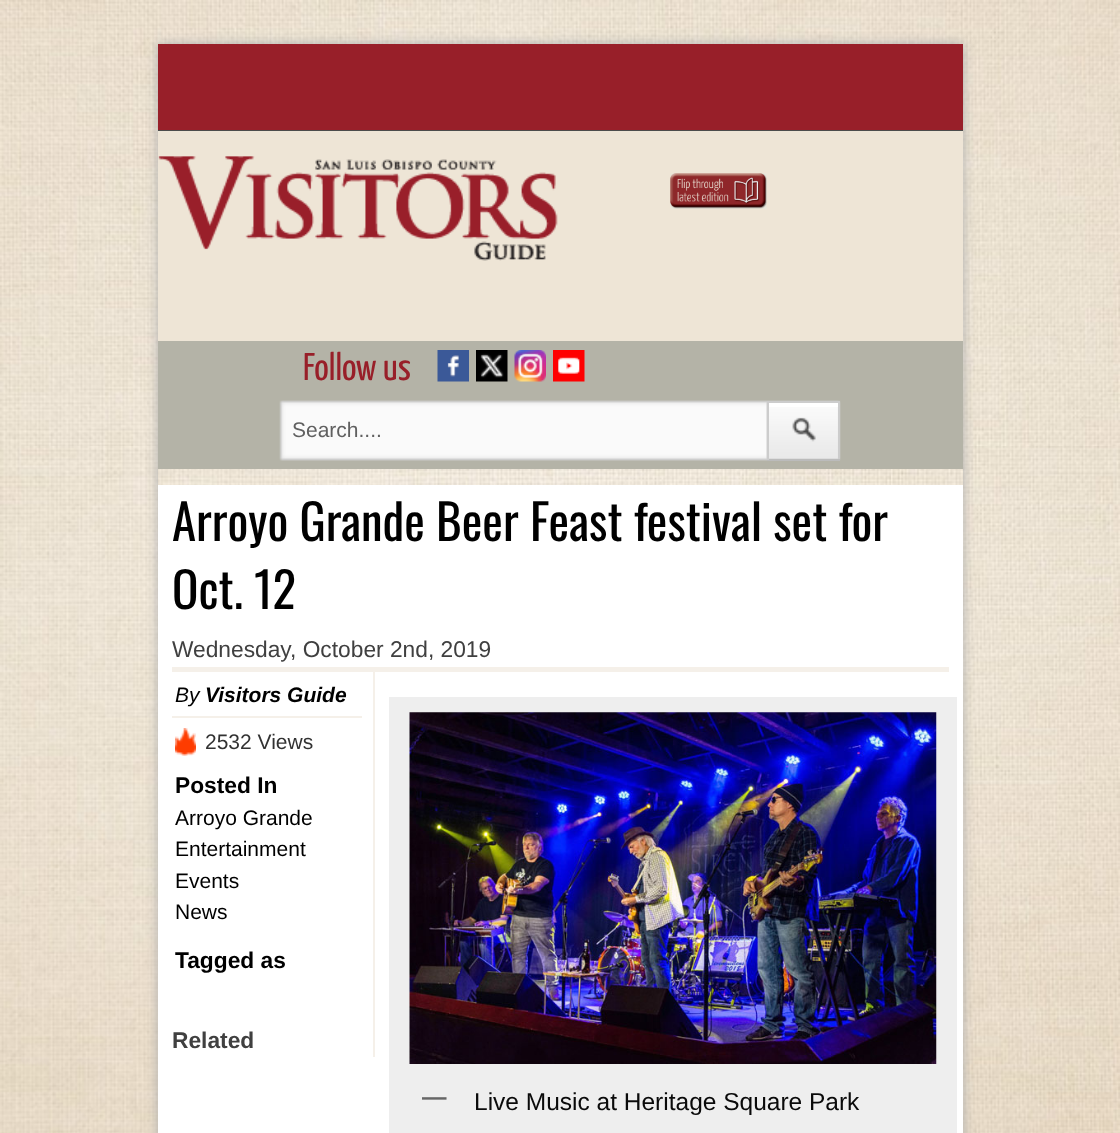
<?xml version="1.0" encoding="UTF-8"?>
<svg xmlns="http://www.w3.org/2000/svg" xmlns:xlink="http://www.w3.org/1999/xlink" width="1120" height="1133">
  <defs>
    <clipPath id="clip1"><path d="M 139 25 h 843 v 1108 h -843 z m 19 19 h 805 v 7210 h -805 z" clip-rule="evenodd" /></clipPath>
  </defs>
  <rect width="100%" height="100%" fill="#ffffff" />
  <image x="0" y="0" width="1120" height="1133" xlink:href="image1.png" />
  <g clip-path="url(#clip1)">
    <rect x="158" y="44" width="805" height="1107" fill="#afafaf" filter="blur(6px)" />
  </g>
  <rect x="158" y="44" width="805" height="86" fill="#981f29" />
  <rect x="158" y="130" width="805" height="1" fill="#4c4c4c" />
  <rect x="158" y="131" width="805" height="210" fill="#eee5d6" />
  <image x="158" y="156" width="400" height="105" xlink:href="image2.png" />
  <image x="670" y="173" width="97" height="36" xlink:href="image3.png" />
  <rect x="158" y="341" width="805" height="128" fill="#b4b3a7" />
  <image x="437" y="350" width="32" height="32" xlink:href="image4.png" />
  <image x="476" y="350" width="32" height="32" xlink:href="image5.png" />
  <image x="514" y="350" width="32" height="32" xlink:href="image6.png" />
  <image x="553" y="350" width="32" height="32" xlink:href="image7.png" />
  <image x="279" y="400" width="562" height="61" xlink:href="image8.png" />
  <rect x="768" y="403" width="70" height="4" fill="#ffffff" />
  <rect x="767" y="401" width="73" height="2" fill="#cccccc" />
  <rect x="838" y="401" width="2" height="59" fill="#cccccc" />
  <rect x="767" y="459" width="73" height="2" fill="#bbbbbb" />
  <rect x="767" y="401" width="2" height="59" fill="#cccccc" />
  <rect x="158" y="485" width="805" height="648" fill="#ffffff" />
  <rect x="172" y="667" width="777" height="5" fill="#f5f0e9" />
  <rect x="373" y="672" width="2" height="385" fill="#f5f0e9" />
  <rect x="172" y="716" width="190" height="2" fill="#f5f0e9" />
  <image x="175" y="728" width="21" height="28" xlink:href="image9.png" />
  <rect x="389" y="697" width="568" height="436" fill="#eeeeee" />
  <image x="409" y="712" width="528" height="352" xlink:href="image10.png" />
  <text x="303" y="380" style="font-family: Yanone Kaffeesatz; font-size: 38.5px; font-weight: 200; fill: #981f29">Follow us</text>
  <text x="292" y="437" style="font-family: Liberation Sans; font-size: 21px; fill: #606060">Search....</text>
  <text x="172" y="541" style="font-family: Oswald; font-size: 49px; fill: #000000">Arroyo Grande Beer Feast festival set for</text>
  <text x="172" y="609" style="font-family: Oswald; font-size: 49px; fill: #000000">Oct. 12</text>
  <text x="172" y="657" style="font-family: Liberation Sans; font-size: 22.75px; fill: #404040">Wednesday, October 2nd, 2019</text>
  <text x="175" y="702" style="font-family: Liberation Sans; font-size: 21px; font-style: italic; fill: #000000">By</text>
  <text x="205" y="702" style="font-family: Liberation Sans; font-size: 21px; font-weight: bold; font-style: italic; fill: #000000">Visitors Guide</text>
  <text x="205" y="749" style="font-family: Liberation Sans; font-size: 21px; fill: #323232">2532 Views</text>
  <text x="175" y="793" style="font-family: Liberation Sans; font-size: 22.75px; font-weight: bold; fill: #000000">Posted In</text>
  <text x="175" y="825" style="font-family: Liberation Sans; font-size: 21px; fill: #000000">Arroyo Grande</text>
  <text x="175" y="856" style="font-family: Liberation Sans; font-size: 21px; fill: #000000">Entertainment</text>
  <text x="175" y="888" style="font-family: Liberation Sans; font-size: 21px; fill: #000000">Events</text>
  <text x="175" y="919" style="font-family: Liberation Sans; font-size: 21px; fill: #000000">News</text>
  <text x="175" y="968" style="font-family: Liberation Sans; font-size: 22.75px; font-weight: bold; fill: #000000">Tagged as</text>
  <text x="172" y="1048" style="font-family: Liberation Sans; font-size: 22.75px; font-weight: bold; fill: #404040">Related</text>
  <text x="422" y="1105" style="font-family: Liberation Sans; font-size: 24.5px; font-weight: bold; fill: #666666">—</text>
  <text x="474" y="1110" style="font-family: Liberation Sans; font-size: 24.5px; fill: #0a0a0a">Live Music at Heritage Square Park</text>
</svg>
